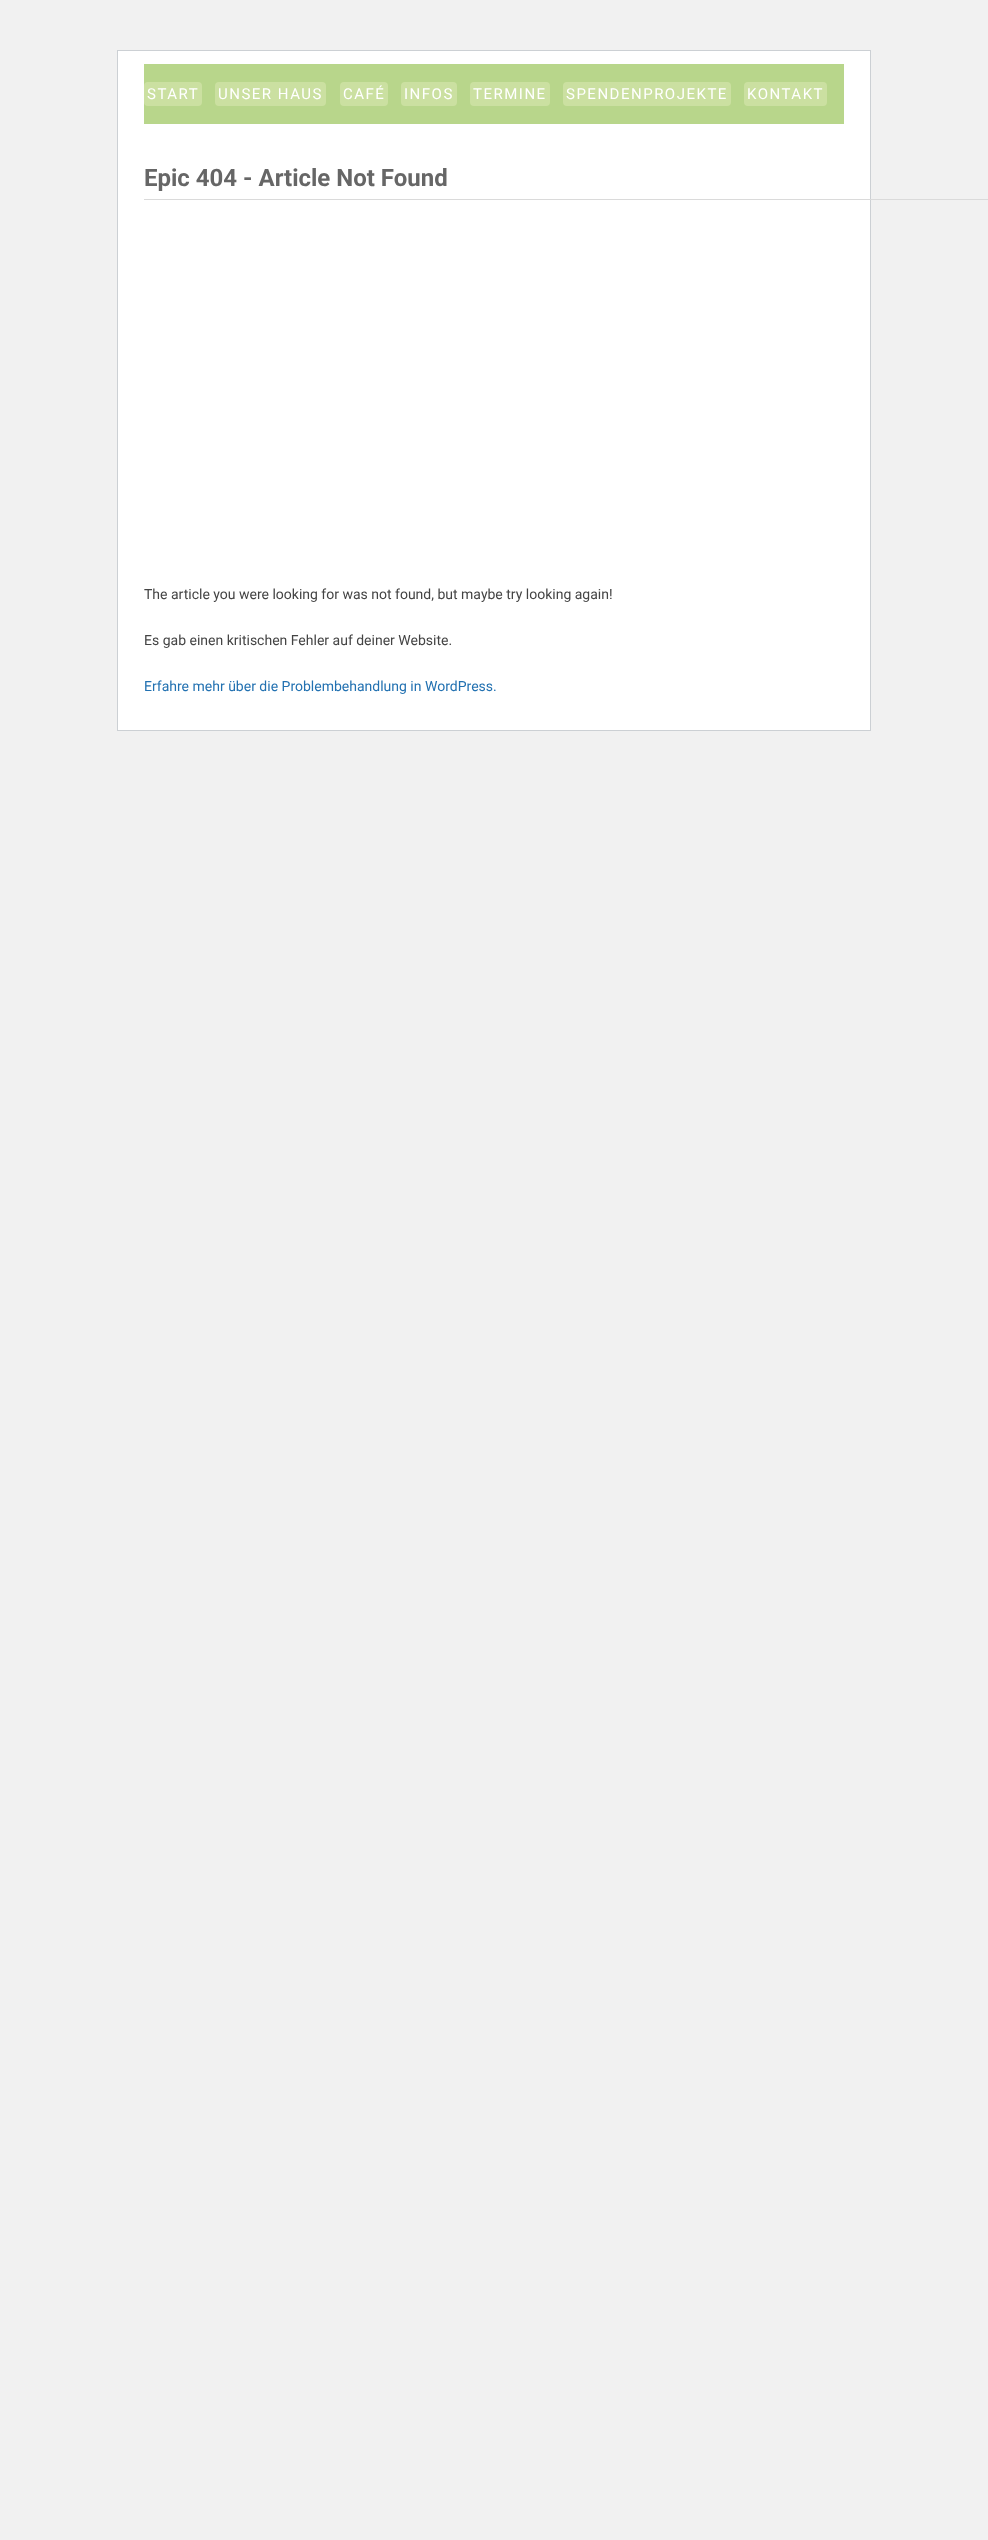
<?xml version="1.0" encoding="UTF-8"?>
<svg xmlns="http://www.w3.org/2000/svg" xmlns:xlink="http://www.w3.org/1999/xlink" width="988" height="2540">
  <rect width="100%" height="100%" fill="#f1f1f1" />
  <rect x="117.5" y="50.5" width="753" height="680" fill="#ffffff" stroke="#ccd0d4" />
  <rect x="144" y="64" width="700" height="60" fill="#b8d68b" />
  <rect x="144" y="82" width="58" height="24" rx="4" fill="#cbe0a1" />
  <rect x="215" y="82" width="111" height="24" rx="4" fill="#cbe0a1" />
  <rect x="340" y="82" width="48" height="24" rx="4" fill="#cbe0a1" />
  <rect x="401" y="82" width="56" height="24" rx="4" fill="#cbe0a1" />
  <rect x="470" y="82" width="80" height="24" rx="4" fill="#cbe0a1" />
  <rect x="563" y="82" width="168" height="24" rx="4" fill="#cbe0a1" />
  <rect x="744" y="82" width="83" height="24" rx="4" fill="#cbe0a1" />
  <rect x="144" y="199" width="844" height="1" fill="#dadada" />
  <text x="147" y="99" style="font-family: Roboto; font-size: 15px; letter-spacing: 1.5px; fill: #ffffff">START</text>
  <text x="218" y="99" style="font-family: Roboto; font-size: 15px; letter-spacing: 1.5px; fill: #ffffff">UNSER HAUS</text>
  <text x="343" y="99" style="font-family: Roboto; font-size: 15px; letter-spacing: 1.5px; fill: #ffffff">CAFÉ</text>
  <text x="404" y="99" style="font-family: Roboto; font-size: 15px; letter-spacing: 1.5px; fill: #ffffff">INFOS</text>
  <text x="473" y="99" style="font-family: Roboto; font-size: 15px; letter-spacing: 1.5px; fill: #ffffff">TERMINE</text>
  <text x="566" y="99" style="font-family: Roboto; font-size: 15px; letter-spacing: 1.5px; fill: #ffffff">SPENDENPROJEKTE</text>
  <text x="747" y="99" style="font-family: Roboto; font-size: 15px; letter-spacing: 1.5px; fill: #ffffff">KONTAKT</text>
  <text x="144" y="186" style="font-family: Roboto; font-size: 24px; font-weight: bold; fill: #666666">Epic 404 - Article Not Found</text>
  <text x="144" y="599" style="font-family: Roboto; font-size: 14px; fill: #444444">The article you were looking for was not found, but maybe try looking again!</text>
  <text x="144" y="645" style="font-family: Roboto; font-size: 14px; fill: #444444">Es gab einen kritischen Fehler auf deiner Website.</text>
  <text x="144" y="691" style="font-family: Roboto; font-size: 14px; fill: #2271b1">Erfahre mehr über die Problembehandlung in WordPress.</text>
</svg>
